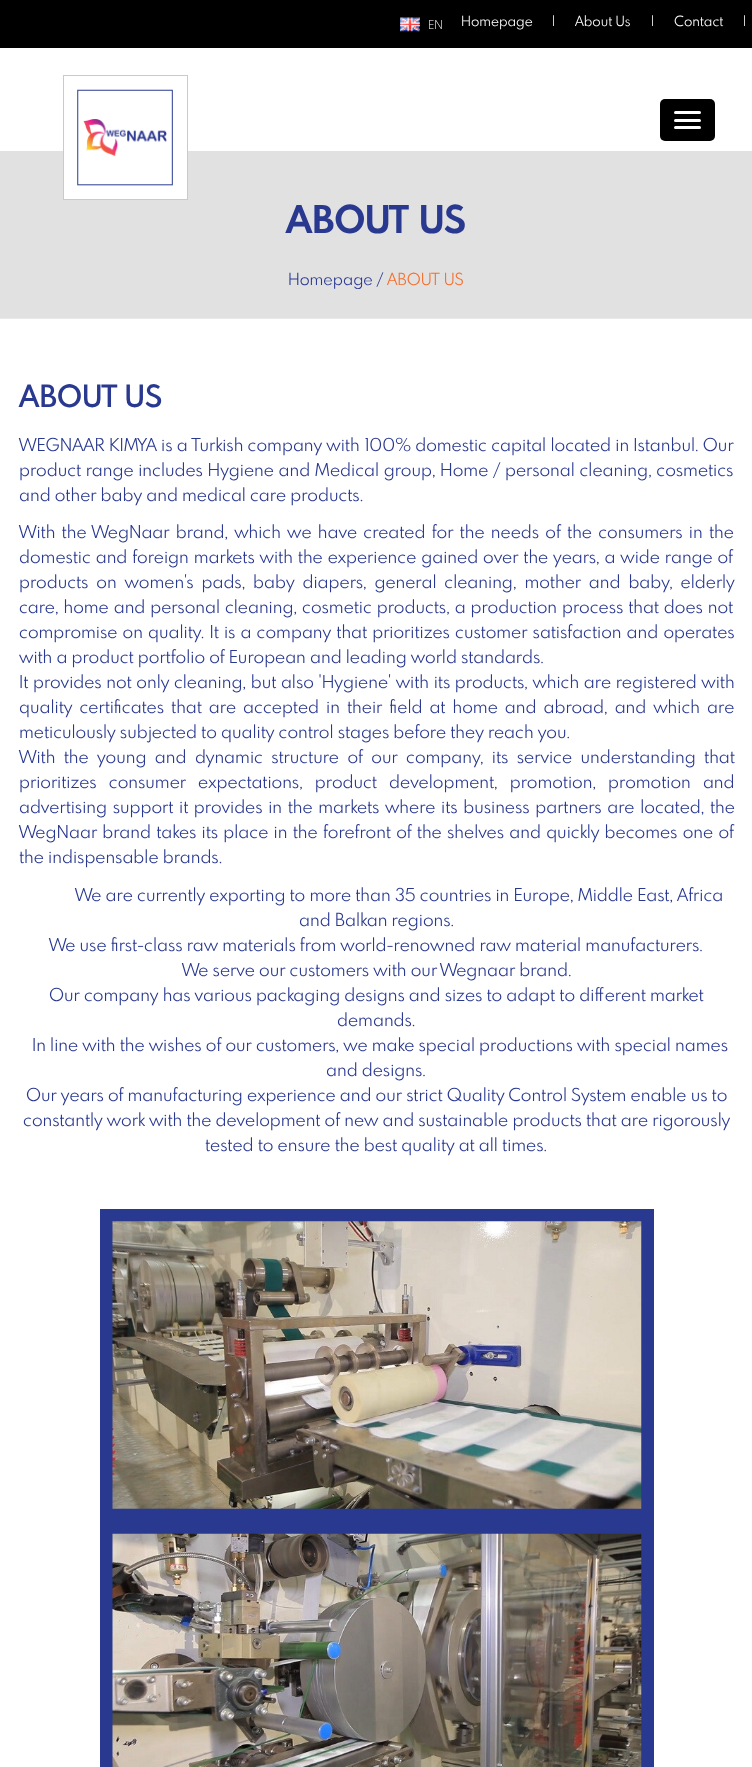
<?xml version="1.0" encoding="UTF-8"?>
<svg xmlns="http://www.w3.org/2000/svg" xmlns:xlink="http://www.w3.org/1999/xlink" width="752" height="1767">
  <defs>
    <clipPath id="clip1"><rect x="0" y="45" width="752" height="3" /></clipPath>
  </defs>
  <rect width="100%" height="100%" fill="#ffffff" />
  <rect width="752" height="48" fill="#000000" />
  <image x="400" y="17" width="20" height="15" xlink:href="image1.png" />
  <g clip-path="url(#clip1)">
    <rect x="-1" y="46" width="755" height="107" fill="#000000" fill-opacity="0.3" filter="blur(1px)" />
  </g>
  <rect y="151" width="752" height="167" fill="#e1e1e1" />
  <rect x="64" y="151" width="123" height="48" fill="#ffffff" />
  <rect x="63.5" y="75.5" width="124" height="124" fill="none" stroke="#ffb3b3" />
  <image x="77" y="89" width="96" height="97" xlink:href="image2.png" />
  <rect x="660" y="99" width="55" height="42" rx="5" fill="#000000" />
  <rect x="674" y="111" width="27" height="3" rx="1.5" fill="#ffffff" />
  <rect x="674" y="119" width="27" height="3" rx="1.5" fill="#ffffff" />
  <rect x="674" y="126" width="27" height="3" rx="1.5" fill="#ffffff" />
  <rect y="318" width="752" height="1" fill="#e9e9e9" />
  <rect x="106.5" y="1215.5" width="541" height="299" fill="none" stroke="#2a3990" stroke-width="13" />
  <image x="112" y="1221" width="530" height="288" xlink:href="image3.png" />
  <rect x="106.5" y="1527.5" width="541" height="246" fill="none" stroke="#2a3990" stroke-width="13" />
  <image x="112" y="1533" width="530" height="234" xlink:href="image4.png" />
  <text x="428" y="29" style="font-family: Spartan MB; font-size: 12px; font-weight: 300; fill: #ffffff">EN</text>
  <text x="461" y="26" style="font-family: Spartan MB; font-size: 13.75px; fill: #ffffff">Homepage</text>
  <text x="552" y="26" style="font-family: Spartan MB; font-size: 13.75px; fill: #ffffff">|</text>
  <text x="575" y="26" style="font-family: Spartan MB; font-size: 13.75px; fill: #ffffff">About Us</text>
  <text x="651" y="26" style="font-family: Spartan MB; font-size: 13.75px; fill: #ffffff">|</text>
  <text x="674" y="26" style="font-family: Spartan MB; font-size: 13.75px; fill: #ffffff">Contact</text>
  <text x="743" y="26" style="font-family: Spartan MB; font-size: 13.75px; fill: #ffffff">|</text>
  <text x="286" y="233" style="font-family: Spartan MB; font-size: 37.5px; font-weight: bold; fill: #2a3990">ABOUT US</text>
  <text x="288" y="285" style="font-family: Spartan MB; font-size: 16.25px; fill: #2a3990">Homepage /</text>
  <text x="387" y="285" style="font-family: Spartan MB; font-size: 16.25px; fill: #f76e2b">ABOUT US</text>
  <text x="19" y="407" style="font-family: Spartan MB; font-size: 30px; font-weight: 600; fill: #2a3990">ABOUT US</text>
  <text x="19" y="451" word-spacing="0.1" style="font-family: Spartan MB; font-size: 17.5px; fill: #2a3990">WEGNAAR KIMYA is a Turkish company with 100% domestic capital located in Istanbul. Our</text>
  <text x="19" y="476" word-spacing="0.5" style="font-family: Spartan MB; font-size: 17.5px; fill: #2a3990">product range includes Hygiene and Medical group, Home / personal cleaning, cosmetics</text>
  <text x="19" y="501" style="font-family: Spartan MB; font-size: 17.5px; fill: #2a3990">and other baby and medical care products.</text>
  <text x="19" y="538" word-spacing="2.1" style="font-family: Spartan MB; font-size: 17.5px; fill: #2a3990">With the WegNaar brand, which we have created for the needs of the consumers in the</text>
  <text x="19" y="563" word-spacing="0.75" style="font-family: Spartan MB; font-size: 17.5px; fill: #2a3990">domestic and foreign markets with the experience gained over the years, a wide range of</text>
  <text x="19" y="588" word-spacing="3.75" style="font-family: Spartan MB; font-size: 17.5px; fill: #2a3990">products on women's pads, baby diapers, general cleaning, mother and baby, elderly</text>
  <text x="19" y="613" word-spacing="0.75" style="font-family: Spartan MB; font-size: 17.5px; fill: #2a3990">care, home and personal cleaning, cosmetic products, a production process that does not</text>
  <text x="19" y="638" word-spacing="1" style="font-family: Spartan MB; font-size: 17.5px; fill: #2a3990">compromise on quality. It is a company that prioritizes customer satisfaction and operates</text>
  <text x="19" y="663" style="font-family: Spartan MB; font-size: 17.5px; fill: #2a3990">with a product portfolio of European and leading world standards.</text>
  <text x="19" y="688" word-spacing="0.5" style="font-family: Spartan MB; font-size: 17.5px; fill: #2a3990">It provides not only cleaning, but also 'Hygiene' with its products, which are registered with</text>
  <text x="19" y="713" word-spacing="2.9" style="font-family: Spartan MB; font-size: 17.5px; fill: #2a3990">quality certificates that are accepted in their field at home and abroad, and which are</text>
  <text x="19" y="738" style="font-family: Spartan MB; font-size: 17.5px; fill: #2a3990">meticulously subjected to quality control stages before they reach you.</text>
  <text x="19" y="763" word-spacing="4.25" style="font-family: Spartan MB; font-size: 17.5px; fill: #2a3990">With the young and dynamic structure of our company, its service understanding that</text>
  <text x="19" y="788" word-spacing="8" style="font-family: Spartan MB; font-size: 17.5px; fill: #2a3990">prioritizes consumer expectations, product development, promotion, promotion and</text>
  <text x="19" y="813" word-spacing="1.5" style="font-family: Spartan MB; font-size: 17.5px; fill: #2a3990">advertising support it provides in the markets where its business partners are located, the</text>
  <text x="19" y="838" word-spacing="1.1" style="font-family: Spartan MB; font-size: 17.5px; fill: #2a3990">WegNaar brand takes its place in the forefront of the shelves and quickly becomes one of</text>
  <text x="19" y="863" style="font-family: Spartan MB; font-size: 17.5px; fill: #2a3990">the indispensable brands.</text>
  <text x="75" y="901" style="font-family: Spartan MB; font-size: 17.5px; fill: #2a3990">We are currently exporting to more than 35 countries in Europe, Middle East, Africa</text>
  <text x="299" y="926" style="font-family: Spartan MB; font-size: 17.5px; fill: #2a3990">and Balkan regions.</text>
  <text x="49" y="951" style="font-family: Spartan MB; font-size: 17.5px; fill: #2a3990">We use first-class raw materials from world-renowned raw material manufacturers.</text>
  <text x="182" y="976" style="font-family: Spartan MB; font-size: 17.5px; fill: #2a3990">We serve our customers with our Wegnaar brand.</text>
  <text x="49" y="1001" style="font-family: Spartan MB; font-size: 17.5px; fill: #2a3990">Our company has various packaging designs and sizes to adapt to different market</text>
  <text x="337" y="1026" style="font-family: Spartan MB; font-size: 17.5px; fill: #2a3990">demands.</text>
  <text x="32" y="1051" style="font-family: Spartan MB; font-size: 17.5px; fill: #2a3990">In line with the wishes of our customers, we make special productions with special names</text>
  <text x="326" y="1076" style="font-family: Spartan MB; font-size: 17.5px; fill: #2a3990">and designs.</text>
  <text x="26" y="1101" style="font-family: Spartan MB; font-size: 17.5px; fill: #2a3990">Our years of manufacturing experience and our strict Quality Control System enable us to</text>
  <text x="23" y="1126" style="font-family: Spartan MB; font-size: 17.5px; fill: #2a3990">constantly work with the development of new and sustainable products that are rigorously</text>
  <text x="205" y="1151" style="font-family: Spartan MB; font-size: 17.5px; fill: #2a3990">tested to ensure the best quality at all times.</text>
</svg>
